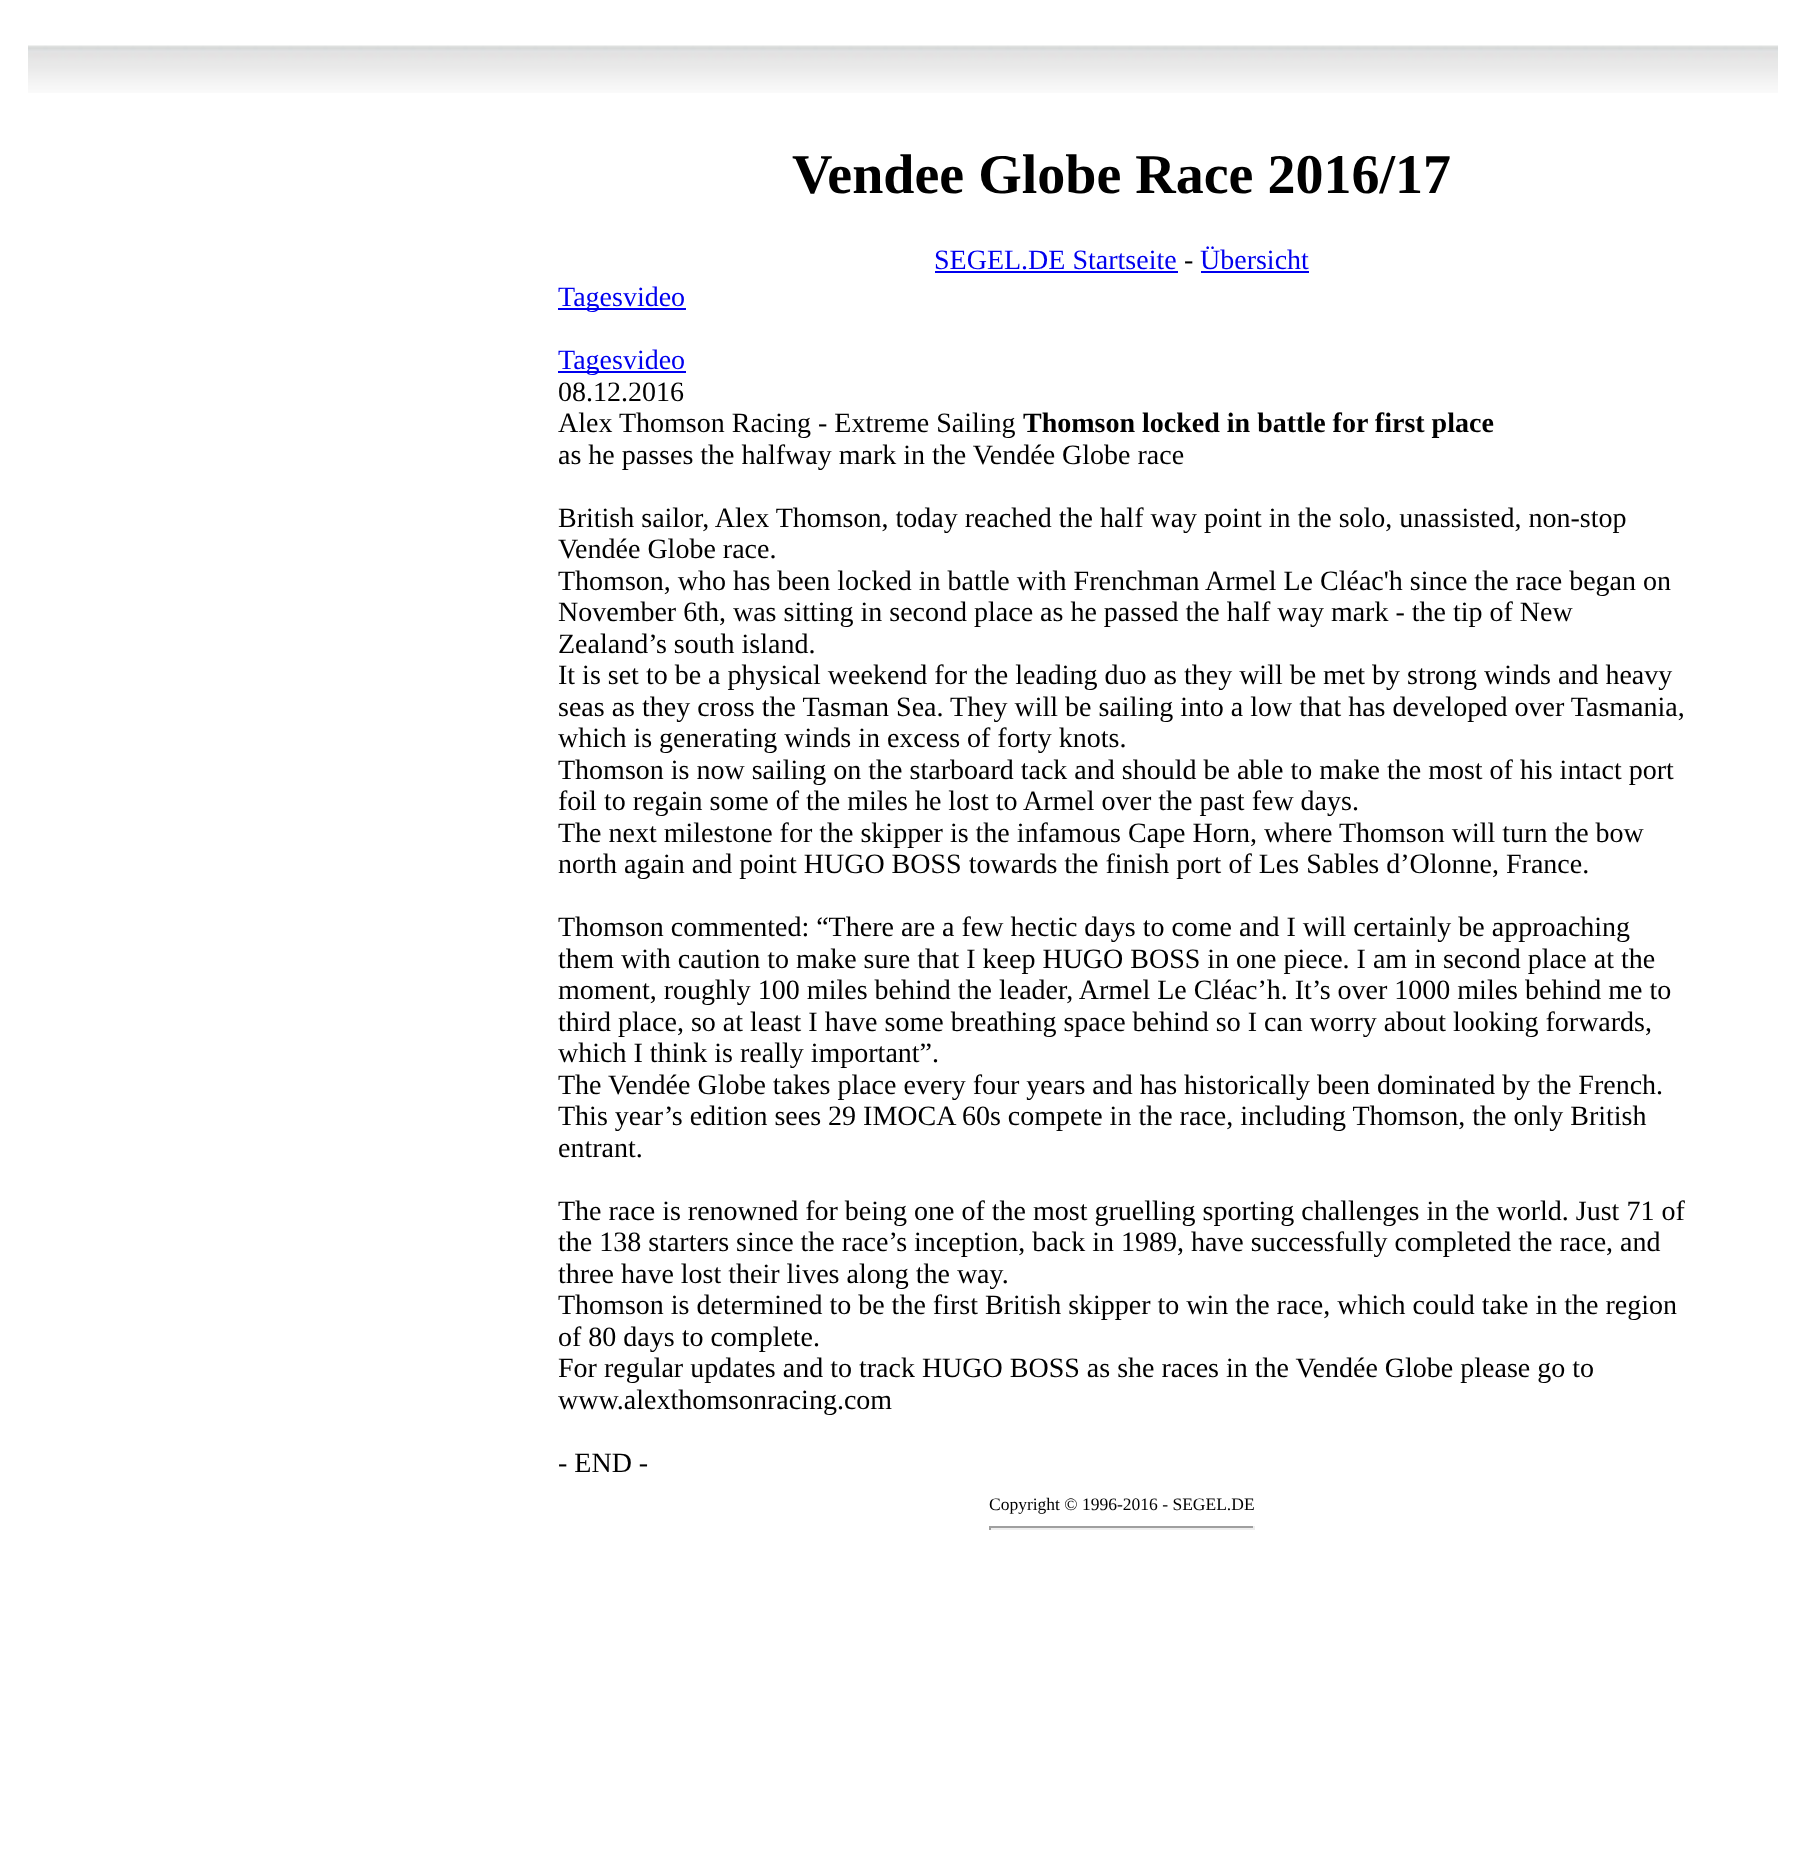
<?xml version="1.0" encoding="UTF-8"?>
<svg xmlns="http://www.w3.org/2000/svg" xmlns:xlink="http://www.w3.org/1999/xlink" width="1797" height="1876">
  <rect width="100%" height="100%" fill="#ffffff" />
  <image x="28" y="45" width="1750" height="48" xlink:href="image1.png" />
  <rect x="935" y="271" width="243" height="2" fill="#0000ee" />
  <rect x="1201" y="271" width="108" height="2" fill="#0000ee" />
  <rect x="558" y="308" width="128" height="2" fill="#0000ee" />
  <rect x="558" y="371" width="128" height="2" fill="#0000ee" />
  <rect x="989" y="1526" width="266" height="2" fill="#9f9f9f" />
  <rect x="1253" y="1526" width="2" height="4" fill="#eeeeee" />
  <rect x="989" y="1528" width="266" height="2" fill="#eeeeee" />
  <rect x="989" y="1526" width="2" height="4" fill="#9f9f9f" />
  <text x="792" y="193" style="font-family: Liberation Serif; font-size: 56px; font-weight: bold; fill: #000000">Vendee Globe Race 2016/17</text>
  <text x="934" y="269" style="font-family: Liberation Serif; font-size: 28px; fill: #0000ee">SEGEL.DE Startseite</text>
  <text x="1184" y="269" style="font-family: Liberation Serif; font-size: 28px; fill: #000000">-</text>
  <text x="1200" y="269" style="font-family: Liberation Serif; font-size: 28px; fill: #0000ee">Übersicht</text>
  <text x="558" y="306" style="font-family: Liberation Serif; font-size: 28px; fill: #0000ee">Tagesvideo</text>
  <text x="558" y="369" style="font-family: Liberation Serif; font-size: 28px; fill: #0000ee">Tagesvideo</text>
  <text x="558" y="401" style="font-family: Liberation Serif; font-size: 28px; fill: #000000">08.12.2016</text>
  <text x="558" y="432" style="font-family: Liberation Serif; font-size: 28px; fill: #000000">Alex Thomson Racing - Extreme Sailing</text>
  <text x="1023" y="432" style="font-family: Liberation Serif; font-size: 28px; font-weight: bold; fill: #000000">Thomson locked in battle for first place</text>
  <text x="558" y="464" style="font-family: Liberation Serif; font-size: 28px; fill: #000000">as he passes the halfway mark in the Vendée Globe race</text>
  <text x="558" y="527" style="font-family: Liberation Serif; font-size: 28px; fill: #000000">British sailor, Alex Thomson, today reached the half way point in the solo, unassisted, non-stop</text>
  <text x="558" y="558" style="font-family: Liberation Serif; font-size: 28px; fill: #000000">Vendée Globe race.</text>
  <text x="558" y="590" style="font-family: Liberation Serif; font-size: 28px; fill: #000000">Thomson, who has been locked in battle with Frenchman Armel Le Cléac'h since the race began on</text>
  <text x="558" y="621" style="font-family: Liberation Serif; font-size: 28px; fill: #000000">November 6th, was sitting in second place as he passed the half way mark - the tip of New</text>
  <text x="558" y="653" style="font-family: Liberation Serif; font-size: 28px; fill: #000000">Zealand’s south island.</text>
  <text x="558" y="684" style="font-family: Liberation Serif; font-size: 28px; fill: #000000">It is set to be a physical weekend for the leading duo as they will be met by strong winds and heavy</text>
  <text x="558" y="716" style="font-family: Liberation Serif; font-size: 28px; fill: #000000">seas as they cross the Tasman Sea. They will be sailing into a low that has developed over Tasmania,</text>
  <text x="558" y="747" style="font-family: Liberation Serif; font-size: 28px; fill: #000000">which is generating winds in excess of forty knots.</text>
  <text x="558" y="779" style="font-family: Liberation Serif; font-size: 28px; fill: #000000">Thomson is now sailing on the starboard tack and should be able to make the most of his intact port</text>
  <text x="558" y="810" style="font-family: Liberation Serif; font-size: 28px; fill: #000000">foil to regain some of the miles he lost to Armel over the past few days.</text>
  <text x="558" y="842" style="font-family: Liberation Serif; font-size: 28px; fill: #000000">The next milestone for the skipper is the infamous Cape Horn, where Thomson will turn the bow</text>
  <text x="558" y="873" style="font-family: Liberation Serif; font-size: 28px; fill: #000000">north again and point HUGO BOSS towards the finish port of Les Sables d’Olonne, France.</text>
  <text x="558" y="936" style="font-family: Liberation Serif; font-size: 28px; fill: #000000">Thomson commented: “There are a few hectic days to come and I will certainly be approaching</text>
  <text x="558" y="968" style="font-family: Liberation Serif; font-size: 28px; fill: #000000">them with caution to make sure that I keep HUGO BOSS in one piece. I am in second place at the</text>
  <text x="558" y="999" style="font-family: Liberation Serif; font-size: 28px; fill: #000000">moment, roughly 100 miles behind the leader, Armel Le Cléac’h. It’s over 1000 miles behind me to</text>
  <text x="558" y="1031" style="font-family: Liberation Serif; font-size: 28px; fill: #000000">third place, so at least I have some breathing space behind so I can worry about looking forwards,</text>
  <text x="558" y="1062" style="font-family: Liberation Serif; font-size: 28px; fill: #000000">which I think is really important”.</text>
  <text x="558" y="1094" style="font-family: Liberation Serif; font-size: 28px; fill: #000000">The Vendée Globe takes place every four years and has historically been dominated by the French.</text>
  <text x="558" y="1125" style="font-family: Liberation Serif; font-size: 28px; fill: #000000">This year’s edition sees 29 IMOCA 60s compete in the race, including Thomson, the only British</text>
  <text x="558" y="1157" style="font-family: Liberation Serif; font-size: 28px; fill: #000000">entrant.</text>
  <text x="558" y="1220" style="font-family: Liberation Serif; font-size: 28px; fill: #000000">The race is renowned for being one of the most gruelling sporting challenges in the world. Just 71 of</text>
  <text x="558" y="1251" style="font-family: Liberation Serif; font-size: 28px; fill: #000000">the 138 starters since the race’s inception, back in 1989, have successfully completed the race, and</text>
  <text x="558" y="1283" style="font-family: Liberation Serif; font-size: 28px; fill: #000000">three have lost their lives along the way.</text>
  <text x="558" y="1314" style="font-family: Liberation Serif; font-size: 28px; fill: #000000">Thomson is determined to be the first British skipper to win the race, which could take in the region</text>
  <text x="558" y="1346" style="font-family: Liberation Serif; font-size: 28px; fill: #000000">of 80 days to complete.</text>
  <text x="558" y="1377" style="font-family: Liberation Serif; font-size: 28px; fill: #000000">For regular updates and to track HUGO BOSS as she races in the Vendée Globe please go to</text>
  <text x="558" y="1409" style="font-family: Liberation Serif; font-size: 28px; fill: #000000">www.alexthomsonracing.com</text>
  <text x="558" y="1472" style="font-family: Liberation Serif; font-size: 28px; fill: #000000">- END -</text>
  <text x="989" y="1510" style="font-family: Liberation Serif; font-size: 17.5px; fill: #000000">Copyright © 1996-2016 - SEGEL.DE</text>
</svg>
